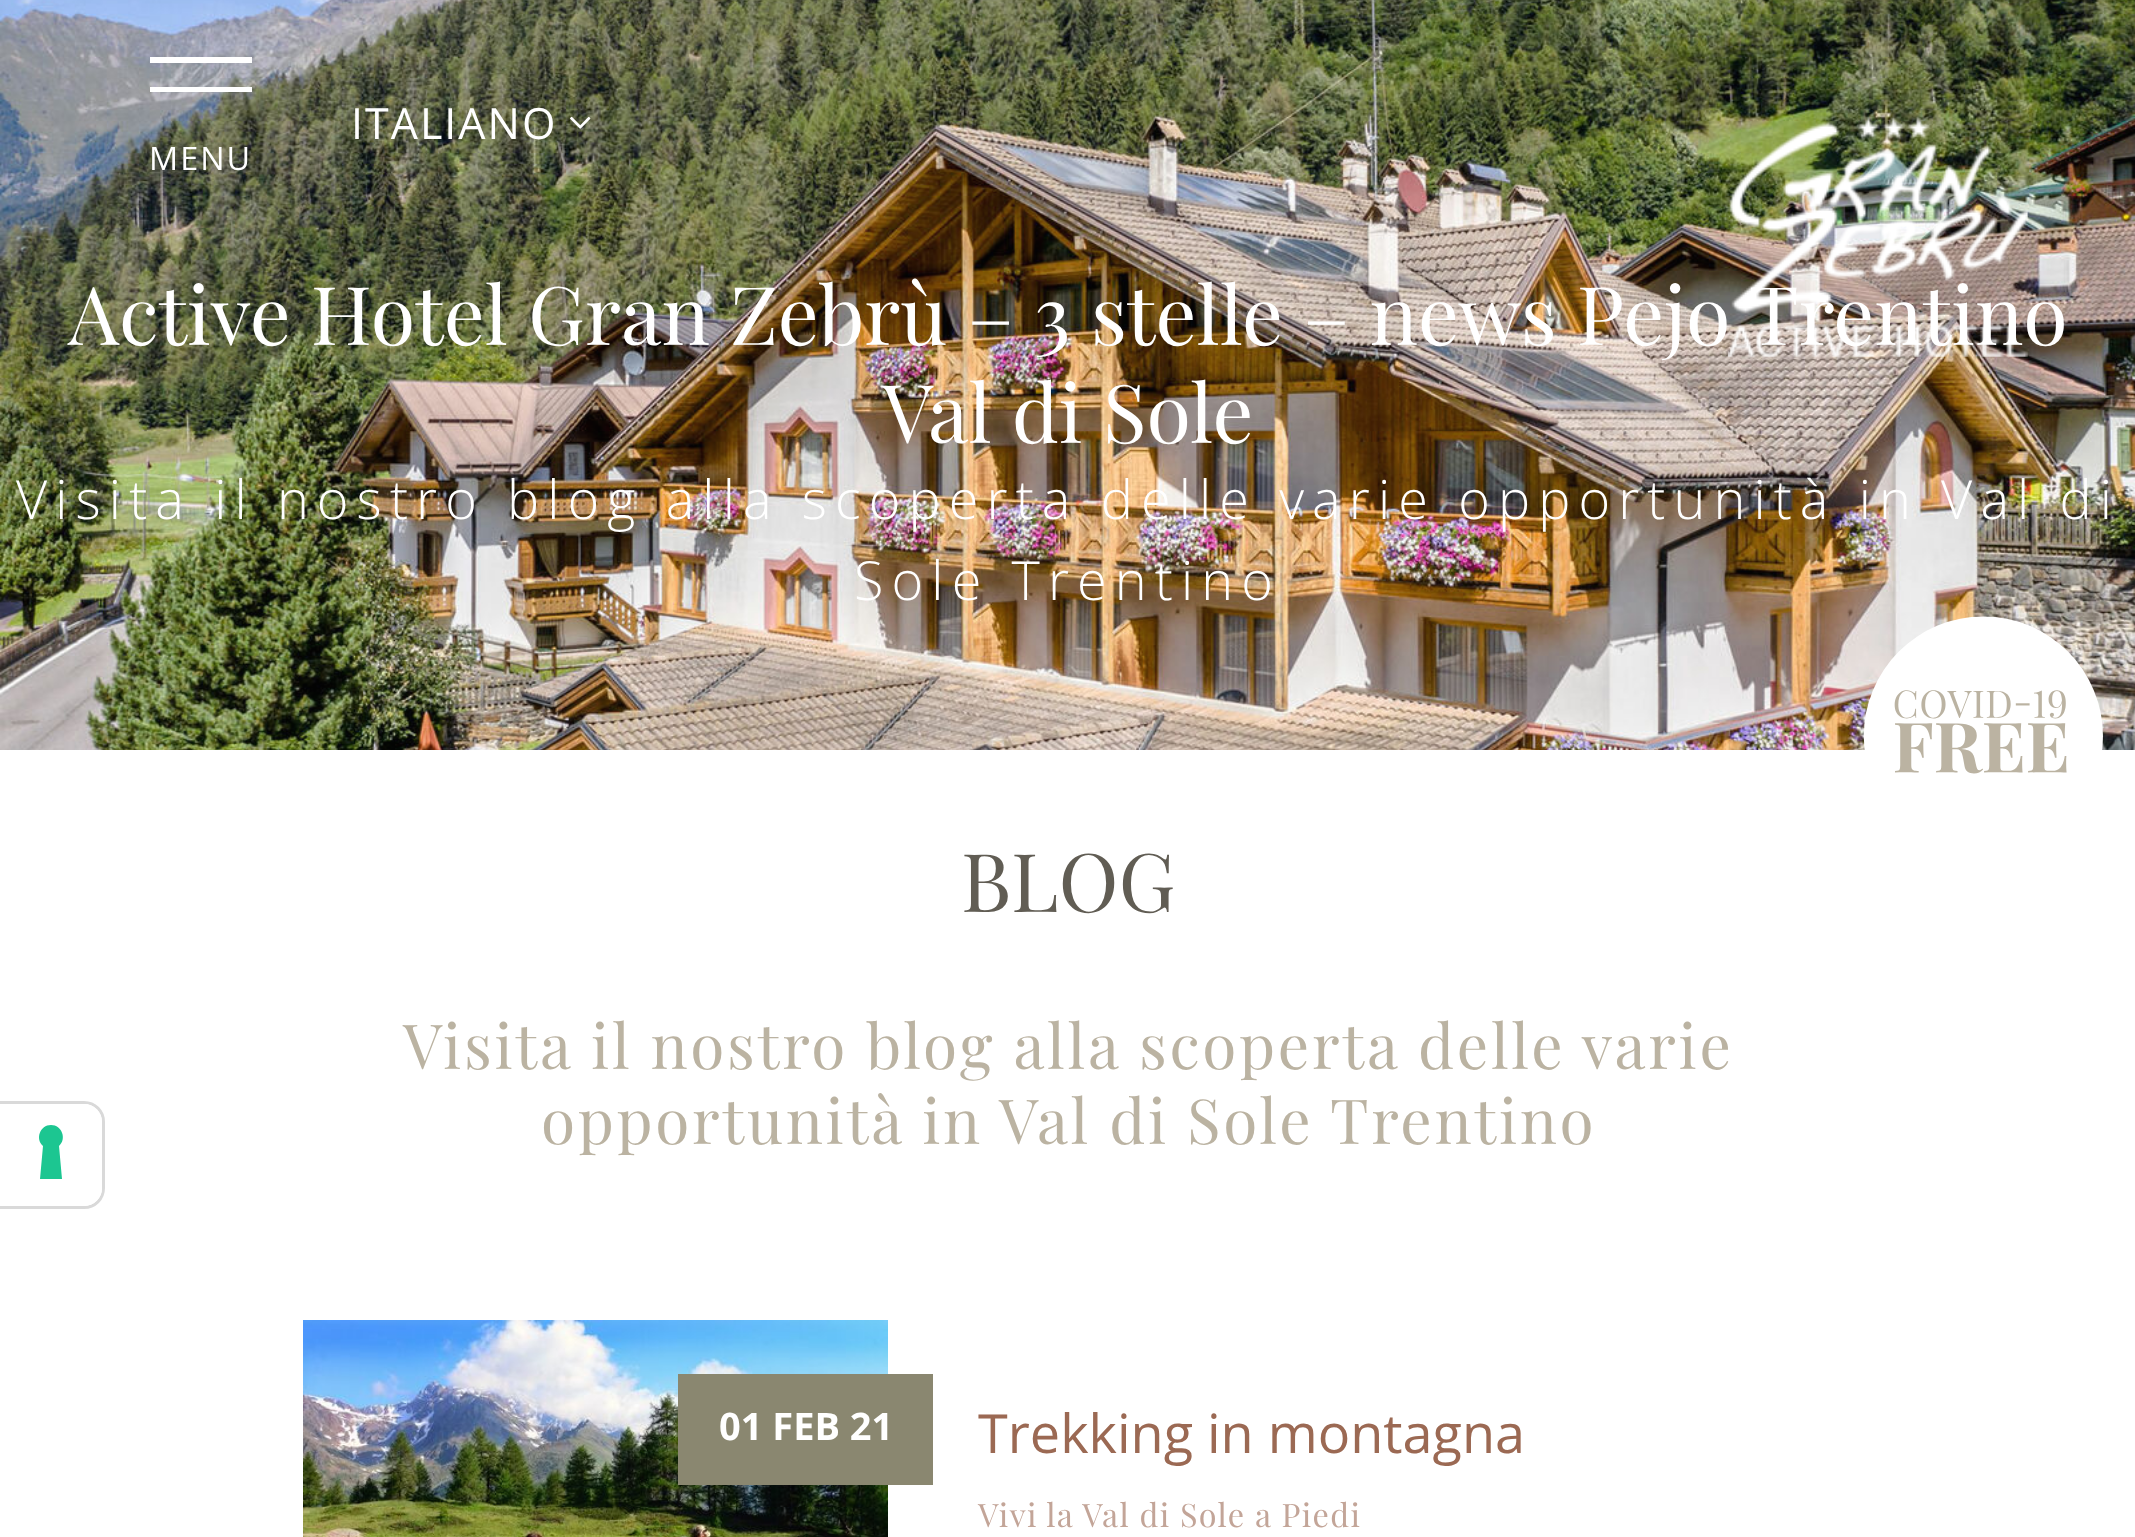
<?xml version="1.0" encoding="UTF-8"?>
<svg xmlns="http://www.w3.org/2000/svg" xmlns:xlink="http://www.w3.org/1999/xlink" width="2135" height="1537">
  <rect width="100%" height="100%" fill="#ffffff" />
  <image x="0" y="0" width="2135" height="750" xlink:href="image1.png" />
  <image x="570" y="116" width="21" height="13" xlink:href="image2.png" />
  <rect x="150" y="57" width="102" height="6" fill="#ffffff" />
  <rect x="150" y="87" width="102" height="5" fill="#ffffff" />
  <image x="1863" y="616" width="240" height="158" xlink:href="image4.png" />
  <path d="M -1.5 1102.5 h 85.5 c 11 0 19.5 8.5 19.5 19.5 v 66 c 0 11 -8.5 19.5 -19.5 19.5 h -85.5 z" fill="none" stroke="#d9d9d9" stroke-width="3" />
  <path d="M 0 1104 h 84 c 10 0 18 8 18 18 v 66 c 0 10 -8 18 -18 18 h -84 z" fill="#ffffff" />
  <path d="M 51 1125 c 11 0 16 14 8 21 l 3 33 h -22 l 3 -33 c -8 -7 -3 -21 8 -21 z" fill="#1cc691" fill-rule="evenodd" />
  <image x="303" y="1320" width="585" height="217" xlink:href="image5.png" />
  <rect x="678" y="1374" width="255" height="111" fill="#8a8770" />
  <text x="351" y="139" style="font-family: Open Sans; font-size: 43px; letter-spacing: 2px; fill: #ffffff">ITALIANO</text>
  <text x="149" y="170" style="font-family: Open Sans; font-size: 32.4px; letter-spacing: 2px; fill: #ffffff">MENU</text>
  <text x="68" y="345" style="font-family: Playfair Display; font-size: 81px; fill: #ffffff">Active Hotel Gran Zebrù – 3 stelle – news Pejo Trentino</text>
  <image x="1728" y="115" width="300" height="242" xlink:href="image3.png" />
  <text x="882" y="443" style="font-family: Playfair Display; font-size: 81px; fill: #ffffff">Val di Sole</text>
  <text x="16" y="519" style="font-family: Open Sans; font-size: 54px; font-weight: 300; letter-spacing: 8.1px; fill: #ffffff">Visita il nostro blog alla scoperta delle varie opportunità in Val di</text>
  <text x="854" y="600" style="font-family: Open Sans; font-size: 54px; font-weight: 300; letter-spacing: 8.1px; fill: #ffffff">Sole Trentino</text>
  <text x="961" y="912" style="font-family: Playfair Display; font-size: 81px; fill: #615d54">BLOG</text>
  <text x="403" y="1069" style="font-family: Playfair Display; font-size: 62.1px; letter-spacing: 2.7px; fill: #bbb3a2">Visita il nostro blog alla scoperta delle varie</text>
  <text x="541" y="1144" style="font-family: Playfair Display; font-size: 62.1px; letter-spacing: 2.7px; fill: #bbb3a2">opportunità in Val di Sole Trentino</text>
  <text x="719" y="1440" style="font-family: Open Sans; font-size: 38px; font-weight: bold; fill: #ffffff">01 FEB 21</text>
  <text x="978" y="1453" style="font-family: Open Sans; font-size: 54px; fill: #9b6953">Trekking in montagna</text>
  <text x="978" y="1527" style="font-family: Playfair Display; font-size: 32.4px; letter-spacing: 1.35px; fill: #c3a598">Vivi la Val di Sole a Piedi</text>
</svg>
